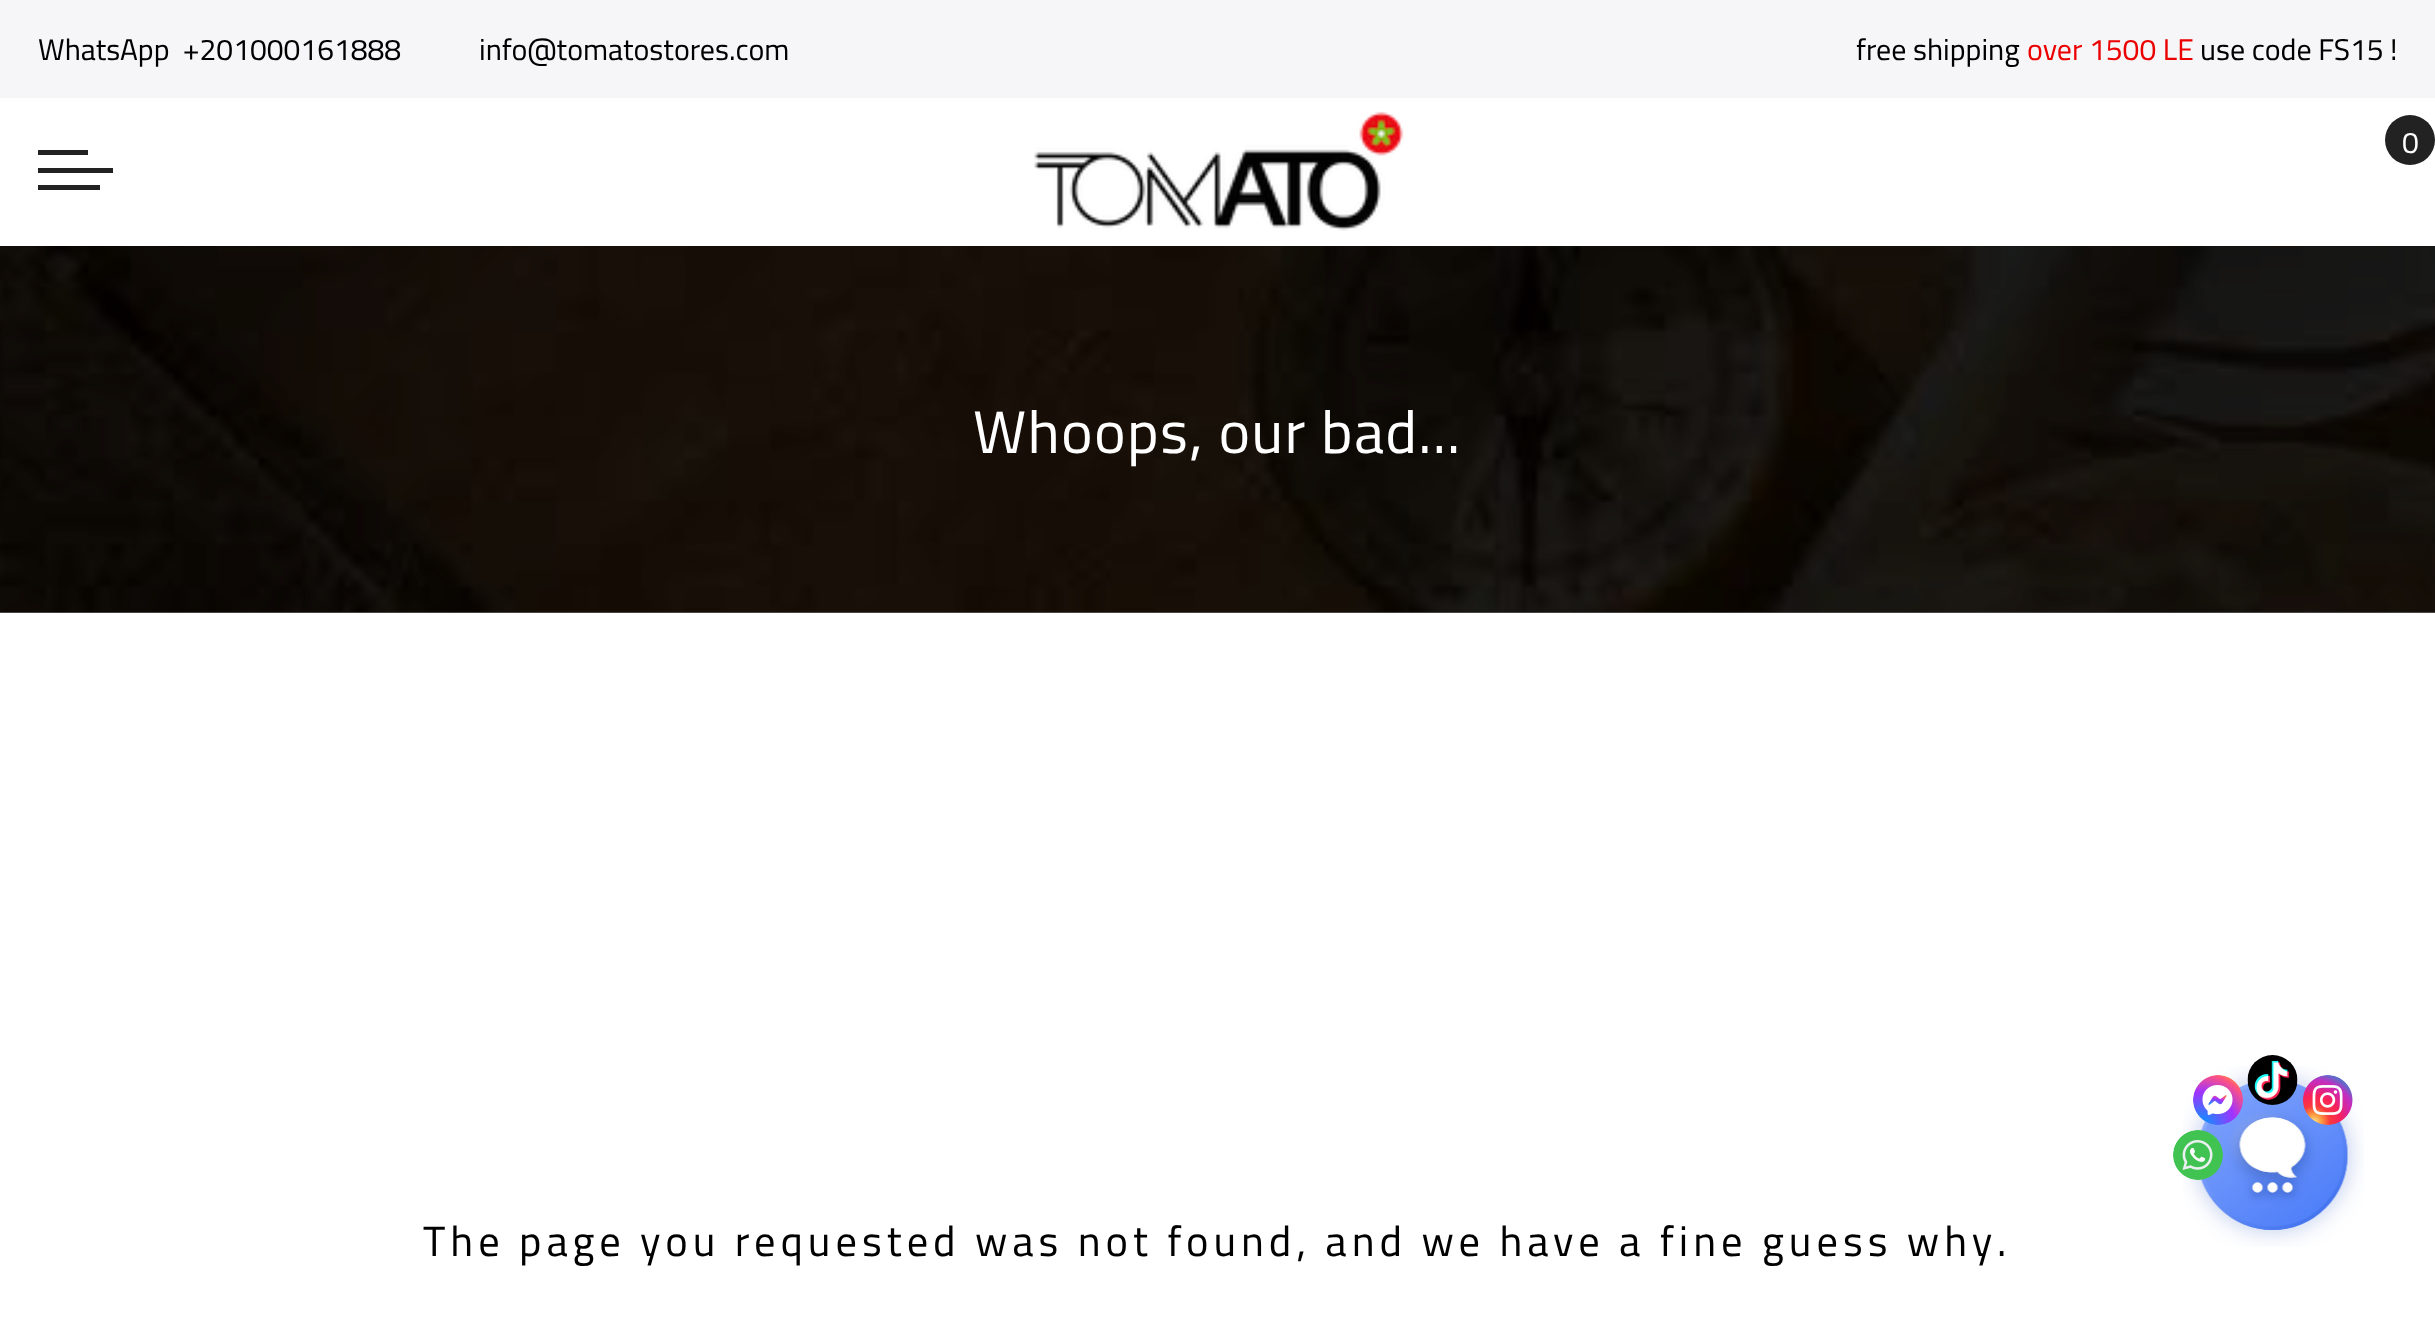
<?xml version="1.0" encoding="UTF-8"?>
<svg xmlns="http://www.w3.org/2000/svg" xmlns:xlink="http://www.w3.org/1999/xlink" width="2435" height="1317">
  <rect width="100%" height="100%" fill="#ffffff" />
  <rect width="2435" height="98" fill="#f6f6f8" />
  <image x="1034" y="111" width="370" height="120" xlink:href="image1.png" />
  <circle cx="2410" cy="140" r="25" fill="#222222" />
  <rect x="38" y="150" width="50" height="5" fill="#222222" />
  <rect x="38" y="168" width="75" height="5" fill="#222222" />
  <rect x="38" y="185" width="62" height="5" fill="#222222" />
  <rect y="612" width="2435" height="1" fill="#7c7c7c" />
  <image x="0" y="246" width="2435" height="367" xlink:href="image2.png" />
  <image x="2183" y="1066" width="181" height="181" xlink:href="image7.png" />
  <image x="2193" y="1075" width="50" height="50" xlink:href="image3.png" />
  <image x="2247" y="1055" width="51" height="50" xlink:href="image4.png" />
  <image x="2303" y="1075" width="50" height="50" xlink:href="image5.png" />
  <image x="2173" y="1130" width="50" height="50" xlink:href="image6.png" />
  <text x="38" y="60" style="font-family: Cairo; font-size: 30px; fill: #000000" xml:space="preserve">WhatsApp  +201000161888</text>
  <text x="479" y="60" style="font-family: Cairo; font-size: 30px; fill: #000000">info@tomatostores.com</text>
  <text x="1856" y="60" style="font-family: Cairo; font-size: 30px; fill: #000000">free shipping</text>
  <text x="2027" y="60" style="font-family: Cairo; font-size: 30px; fill: #ec0101">over 1500 LE</text>
  <text x="2200" y="60" style="font-family: Cairo; font-size: 30px; fill: #000000">use code FS15 !</text>
  <text x="2402" y="153" style="font-family: Cairo; font-size: 30px; fill: #ffffff">0</text>
  <text x="973" y="453" style="font-family: Cairo; font-size: 60px; letter-spacing: 1.25px; fill: #ffffff">Whoops, our bad...</text>
  <text x="423" y="1256" style="font-family: Cairo; font-size: 42.5px; letter-spacing: 5px; fill: #000000">The page you requested was not found, and we have a fine guess why.</text>
</svg>
